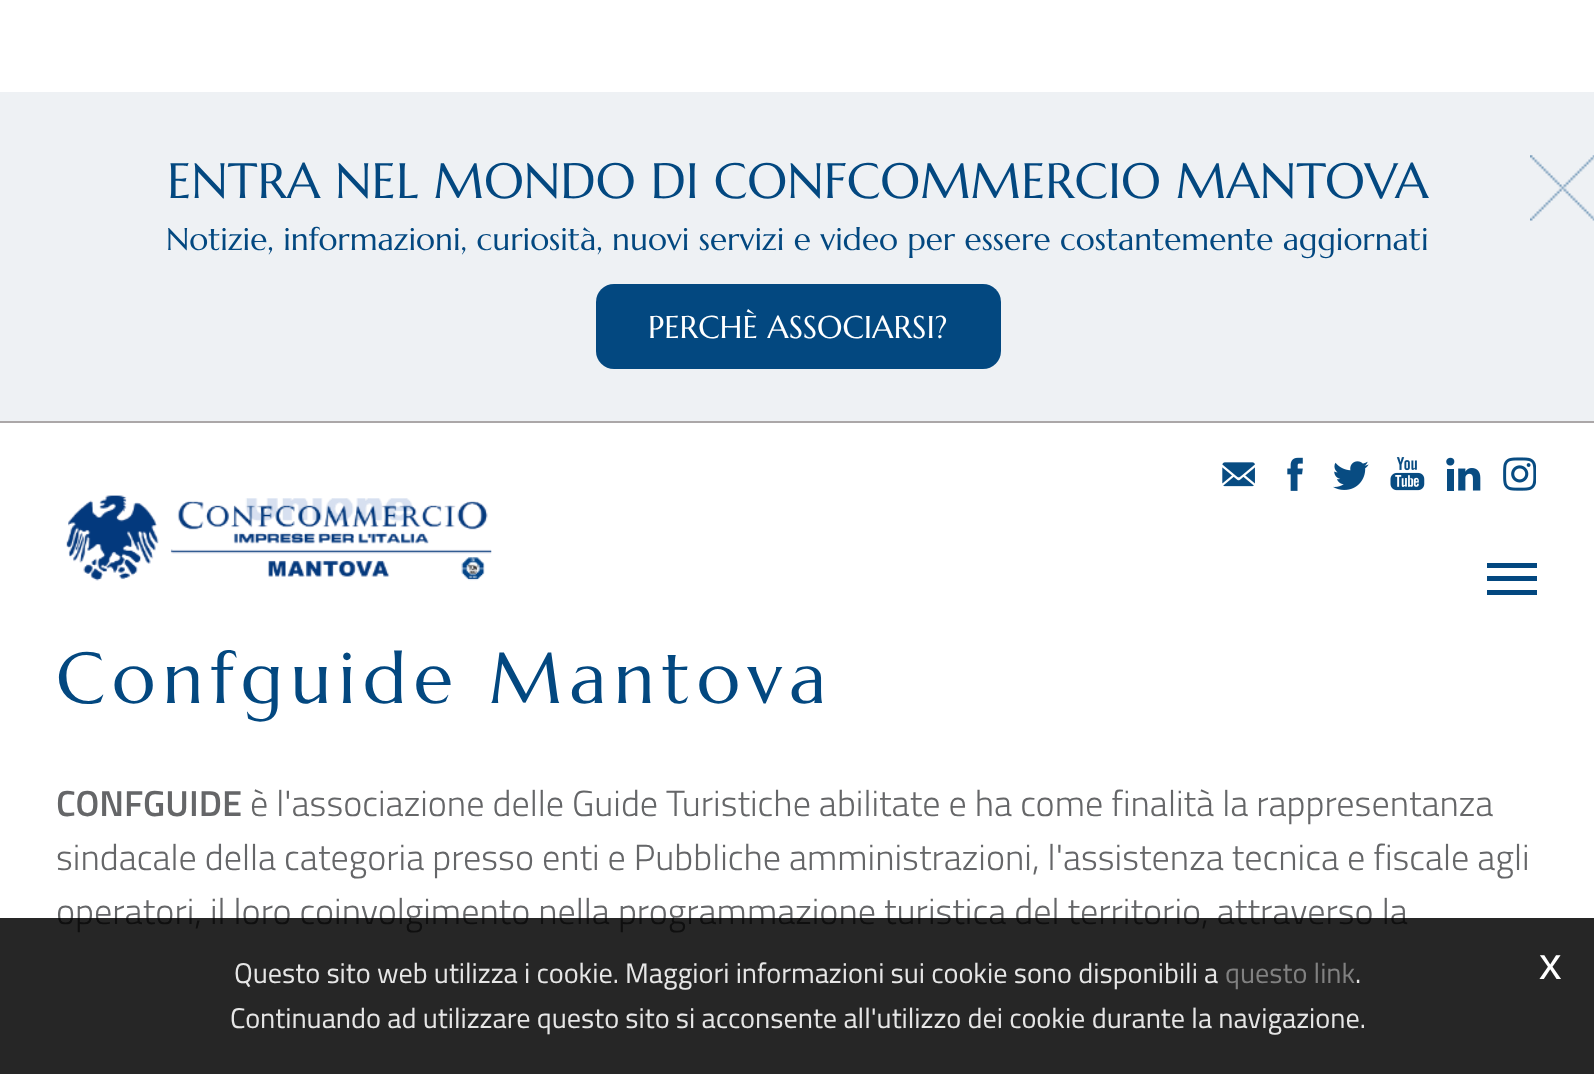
<?xml version="1.0" encoding="UTF-8"?>
<svg xmlns="http://www.w3.org/2000/svg" xmlns:xlink="http://www.w3.org/1999/xlink" width="1594" height="1074">
  <rect width="100%" height="100%" fill="#ffffff" />
  <rect y="92" width="1594" height="329" fill="#eef1f4" />
  <rect y="421" width="1594" height="2" fill="#aba7a8" />
  <image x="1530" y="155" width="64" height="66" xlink:href="image1.png" />
  <rect x="596" y="284" width="405" height="85" rx="18" fill="#034880" />
  <image x="1222" y="462" width="33" height="25" xlink:href="image2.png" />
  <image x="1287" y="457" width="16" height="34" xlink:href="image3.png" />
  <image x="1333" y="461" width="36" height="29" xlink:href="image4.png" />
  <image x="1390" y="457" width="35" height="34" xlink:href="image5.png" />
  <image x="1446" y="457" width="35" height="34" xlink:href="image6.png" />
  <image x="1503" y="457" width="33" height="34" xlink:href="image7.png" />
  <image x="66" y="495" width="426" height="86" xlink:href="image8.png" />
  <rect x="1487" y="563" width="50" height="5" fill="#034880" />
  <rect x="1487" y="576" width="50" height="5" fill="#034880" />
  <rect x="1487" y="590" width="50" height="5" fill="#034880" />
  <text x="167" y="198" style="font-family: Marcellus; font-size: 49.5px; fill: #034880">ENTRA NEL MONDO DI CONFCOMMERCIO MANTOVA</text>
  <text x="166" y="250" style="font-family: Marcellus; font-size: 31.5px; fill: #034880">Notizie, informazioni, curiosità, nuovi servizi e video per essere costantemente aggiornati</text>
  <text x="648" y="338" style="font-family: Marcellus; font-size: 31.5px; fill: #ffffff">PERCHÈ ASSOCIARSI?</text>
  <text x="56" y="703" style="font-family: Marcellus; font-size: 72px; letter-spacing: 7.25px; fill: #034880">Confguide Mantova</text>
  <text x="56" y="816" style="font-family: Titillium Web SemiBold; font-size: 36.25px; font-weight: 600; fill: #656668">CONFGUIDE</text>
  <text x="250" y="816" style="font-family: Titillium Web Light; font-size: 36.25px; font-weight: 300; fill: #656668">è l'associazione delle Guide Turistiche abilitate e ha come finalità la rappresentanza</text>
  <text x="56" y="870" style="font-family: Titillium Web Light; font-size: 36.25px; font-weight: 300; fill: #656668">sindacale della categoria presso enti e Pubbliche amministrazioni, l'assistenza tecnica e fiscale agli</text>
  <text x="56" y="924" style="font-family: Titillium Web Light; font-size: 36.25px; font-weight: 300; fill: #656668">operatori, il loro coinvolgimento nella programmazione turistica del territorio, attraverso la</text>
  <rect y="918" width="1594" height="156" fill="#000000" fill-opacity="0.85" />
  <text x="234" y="983" style="font-family: Titillium Web; font-size: 28.35px; fill: #e6e6e6">Questo sito web utilizza i cookie. Maggiori informazioni sui cookie sono disponibili a</text>
  <text x="1225" y="983" style="font-family: Titillium Web; font-size: 28.35px; fill: #818181">questo link</text>
  <text x="1355" y="983" style="font-family: Titillium Web; font-size: 28.35px; fill: #e6e6e6">.</text>
  <text x="1539" y="979" style="font-family: Liberation Sans; font-size: 45px; fill: #ffffff">x</text>
  <text x="230" y="1028" style="font-family: Titillium Web; font-size: 28.35px; fill: #e6e6e6">Continuando ad utilizzare questo sito si acconsente all'utilizzo dei cookie durante la navigazione.</text>
</svg>
